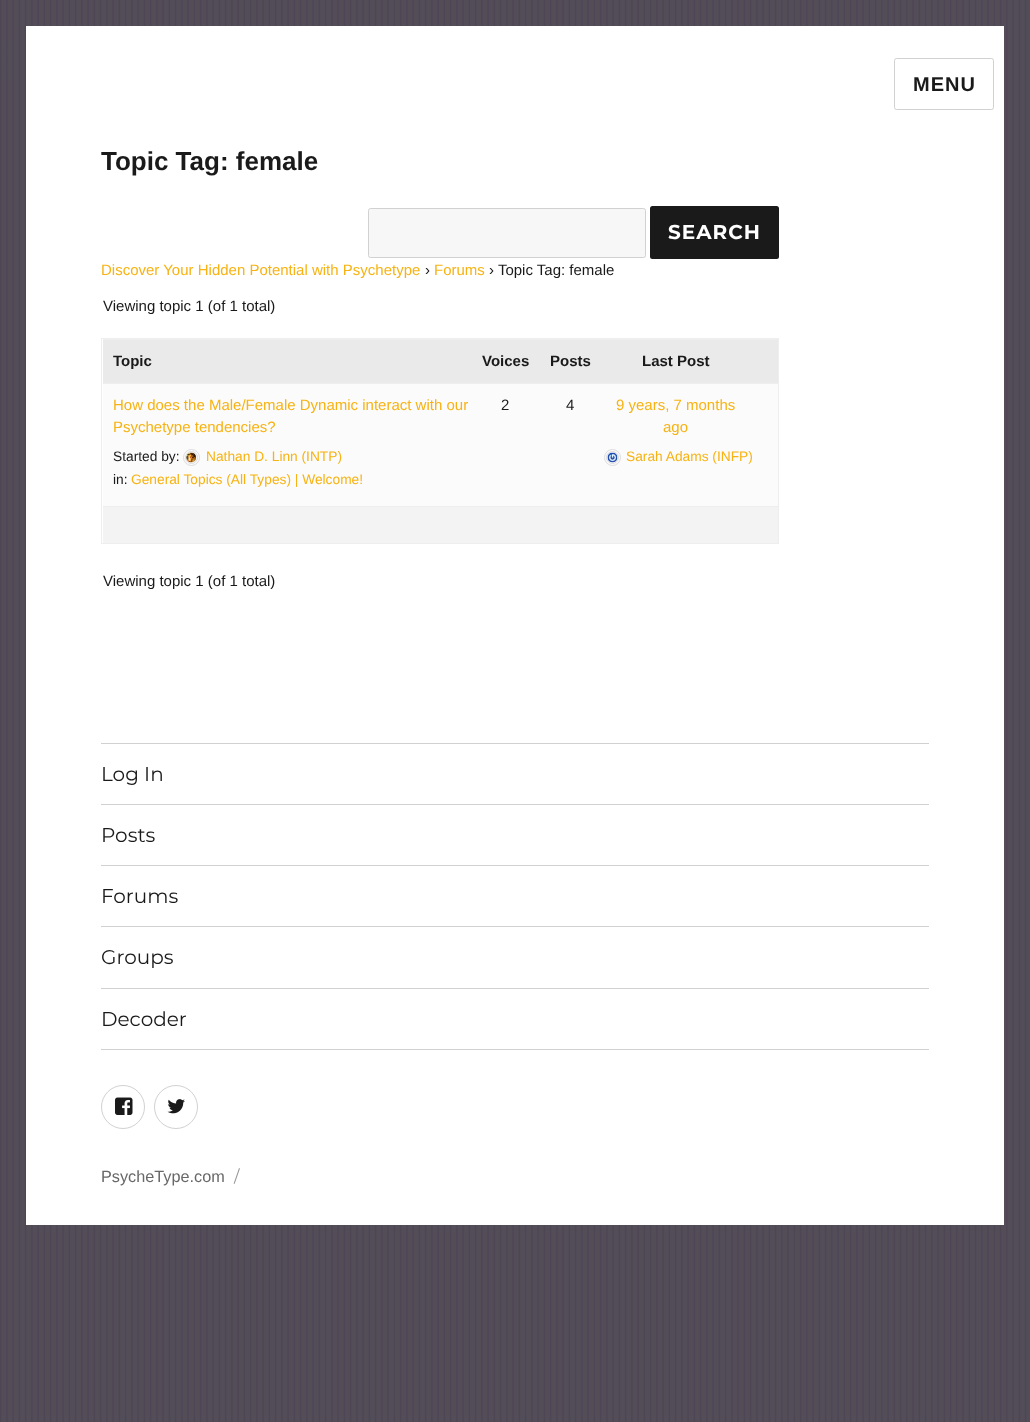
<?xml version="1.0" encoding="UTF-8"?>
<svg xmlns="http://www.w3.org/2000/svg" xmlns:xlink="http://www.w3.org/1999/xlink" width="1030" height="1422">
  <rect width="100%" height="100%" fill="#ffffff" />
  <image x="0" y="0" width="1030" height="1422" xlink:href="image1.png" />
  <rect x="26" y="26" width="978" height="1199" fill="#ffffff" />
  <rect x="894.5" y="58.5" width="99" height="51" rx="2" fill="none" stroke="#d1d1d1" />
  <rect x="368.5" y="208.5" width="277" height="49" rx="2" fill="#f7f7f7" stroke="#d1d1d1" />
  <rect x="650" y="206" width="129" height="53" rx="2.5" fill="#1a1a1a" />
  <rect x="101.5" y="338.5" width="677" height="205" fill="none" stroke="#eeeeee" />
  <rect x="103" y="340" width="675" height="43" fill="#eaeaea" />
  <rect x="103" y="339" width="675" height="1" fill="#eeeeee" />
  <rect x="103" y="384" width="675" height="122" fill="#fbfbfb" />
  <rect x="103" y="383" width="675" height="1" fill="#eeeeee" />
  <circle cx="191.5" cy="457.5" r="8" fill="none" stroke="#dddddd" />
  <circle cx="191.5" cy="457.5" r="6" fill="none" stroke="#dddddd" />
  <image x="186" y="452" width="11" height="11" xlink:href="image2.png" />
  <circle cx="612.5" cy="457.5" r="8" fill="none" stroke="#dddddd" />
  <circle cx="612.5" cy="457.5" r="6" fill="none" stroke="#dddddd" />
  <image x="607" y="452" width="11" height="11" xlink:href="image3.png" />
  <rect x="103" y="507" width="675" height="36" fill="#f3f3f3" />
  <rect x="103" y="506" width="675" height="1" fill="#eeeeee" />
  <rect x="101" y="1049" width="828" height="1" fill="#d1d1d1" />
  <rect x="101" y="743" width="828" height="1" fill="#d1d1d1" />
  <rect x="101" y="804" width="828" height="1" fill="#d1d1d1" />
  <rect x="101" y="865" width="828" height="1" fill="#d1d1d1" />
  <rect x="101" y="926" width="828" height="1" fill="#d1d1d1" />
  <rect x="101" y="988" width="828" height="1" fill="#d1d1d1" />
  <circle cx="123" cy="1107" r="21.5" fill="none" stroke="#d1d1d1" />
  <image x="115" y="1097" width="18" height="18" xlink:href="image4.png" />
  <circle cx="176" cy="1107" r="21.5" fill="none" stroke="#d1d1d1" />
  <image x="167" y="1099" width="18" height="15" xlink:href="image5.png" />
  <text x="913" y="91" style="font-family: Liberation Sans; font-size: 20px; font-weight: bold; letter-spacing: 1px; fill: #1a1a1a">MENU</text>
  <text x="101" y="170" style="font-family: Liberation Sans; font-size: 26px; font-weight: bold; fill: #1a1a1a">Topic Tag: female</text>
  <text x="668" y="239" style="font-family: Montserrat; font-size: 20px; font-weight: 100; letter-spacing: 1px; fill: #ffffff">SEARCH</text>
  <text x="101" y="275" style="font-family: Liberation Sans; font-size: 15px; fill: #f7b313">Discover Your Hidden Potential with Psychetype</text>
  <text x="425" y="275" style="font-family: Liberation Sans; font-size: 15px; fill: #1a1a1a">›</text>
  <text x="434" y="275" style="font-family: Liberation Sans; font-size: 15px; fill: #f7b313">Forums</text>
  <text x="489" y="275" style="font-family: Liberation Sans; font-size: 15px; fill: #1a1a1a">› Topic Tag: female</text>
  <text x="103" y="311" style="font-family: Liberation Sans; font-size: 15px; fill: #1a1a1a">Viewing topic 1 (of 1 total)</text>
  <text x="113" y="366" style="font-family: Liberation Sans; font-size: 15px; font-weight: bold; fill: #1a1a1a">Topic</text>
  <text x="482" y="366" style="font-family: Liberation Sans; font-size: 15px; font-weight: bold; fill: #1a1a1a">Voices</text>
  <text x="550" y="366" style="font-family: Liberation Sans; font-size: 15px; font-weight: bold; fill: #1a1a1a">Posts</text>
  <text x="642" y="366" style="font-family: Liberation Sans; font-size: 15px; font-weight: bold; fill: #1a1a1a">Last Post</text>
  <text x="113" y="410" style="font-family: Liberation Sans; font-size: 15px; fill: #f7b313">How does the Male/Female Dynamic interact with our</text>
  <text x="113" y="432" style="font-family: Liberation Sans; font-size: 15px; fill: #f7b313">Psychetype tendencies?</text>
  <text x="113" y="461" style="font-family: Liberation Sans; font-size: 13.75px; fill: #1a1a1a">Started by:</text>
  <text x="206" y="461" style="font-family: Liberation Sans; font-size: 13.75px; fill: #f7b313">Nathan D. Linn (INTP)</text>
  <text x="113" y="484" style="font-family: Liberation Sans; font-size: 13.75px; fill: #1a1a1a">in:</text>
  <text x="131" y="484" style="font-family: Liberation Sans; font-size: 13.75px; fill: #f7b313">General Topics (All Types) | Welcome!</text>
  <text x="501" y="410" style="font-family: Liberation Sans; font-size: 15px; fill: #1a1a1a">2</text>
  <text x="566" y="410" style="font-family: Liberation Sans; font-size: 15px; fill: #1a1a1a">4</text>
  <text x="616" y="410" style="font-family: Liberation Sans; font-size: 15px; fill: #f7b313">9 years, 7 months</text>
  <text x="663" y="432" style="font-family: Liberation Sans; font-size: 15px; fill: #f7b313">ago</text>
  <text x="626" y="461" style="font-family: Liberation Sans; font-size: 13.75px; fill: #f7b313">Sarah Adams (INFP)</text>
  <text x="103" y="586" style="font-family: Liberation Sans; font-size: 15px; fill: #1a1a1a">Viewing topic 1 (of 1 total)</text>
  <text x="101" y="781" style="font-family: 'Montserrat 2'; font-size: 20px; font-weight: 100; fill: #1a1a1a">Log In</text>
  <text x="101" y="842" style="font-family: 'Montserrat 2'; font-size: 20px; font-weight: 100; fill: #1a1a1a">Posts</text>
  <text x="101" y="903" style="font-family: 'Montserrat 2'; font-size: 20px; font-weight: 100; fill: #1a1a1a">Forums</text>
  <text x="101" y="964" style="font-family: 'Montserrat 2'; font-size: 20px; font-weight: 100; fill: #1a1a1a">Groups</text>
  <text x="101" y="1026" style="font-family: 'Montserrat 2'; font-size: 20px; font-weight: 100; fill: #1a1a1a">Decoder</text>
  <text x="101" y="1182" style="font-family: Liberation Sans; font-size: 16.25px; fill: #686868">PsycheType.com</text>
  <text x="234" y="1182" style="font-family: 'Montserrat 2'; font-size: 16.25px; font-weight: 100; fill: #959595">/</text>
</svg>
